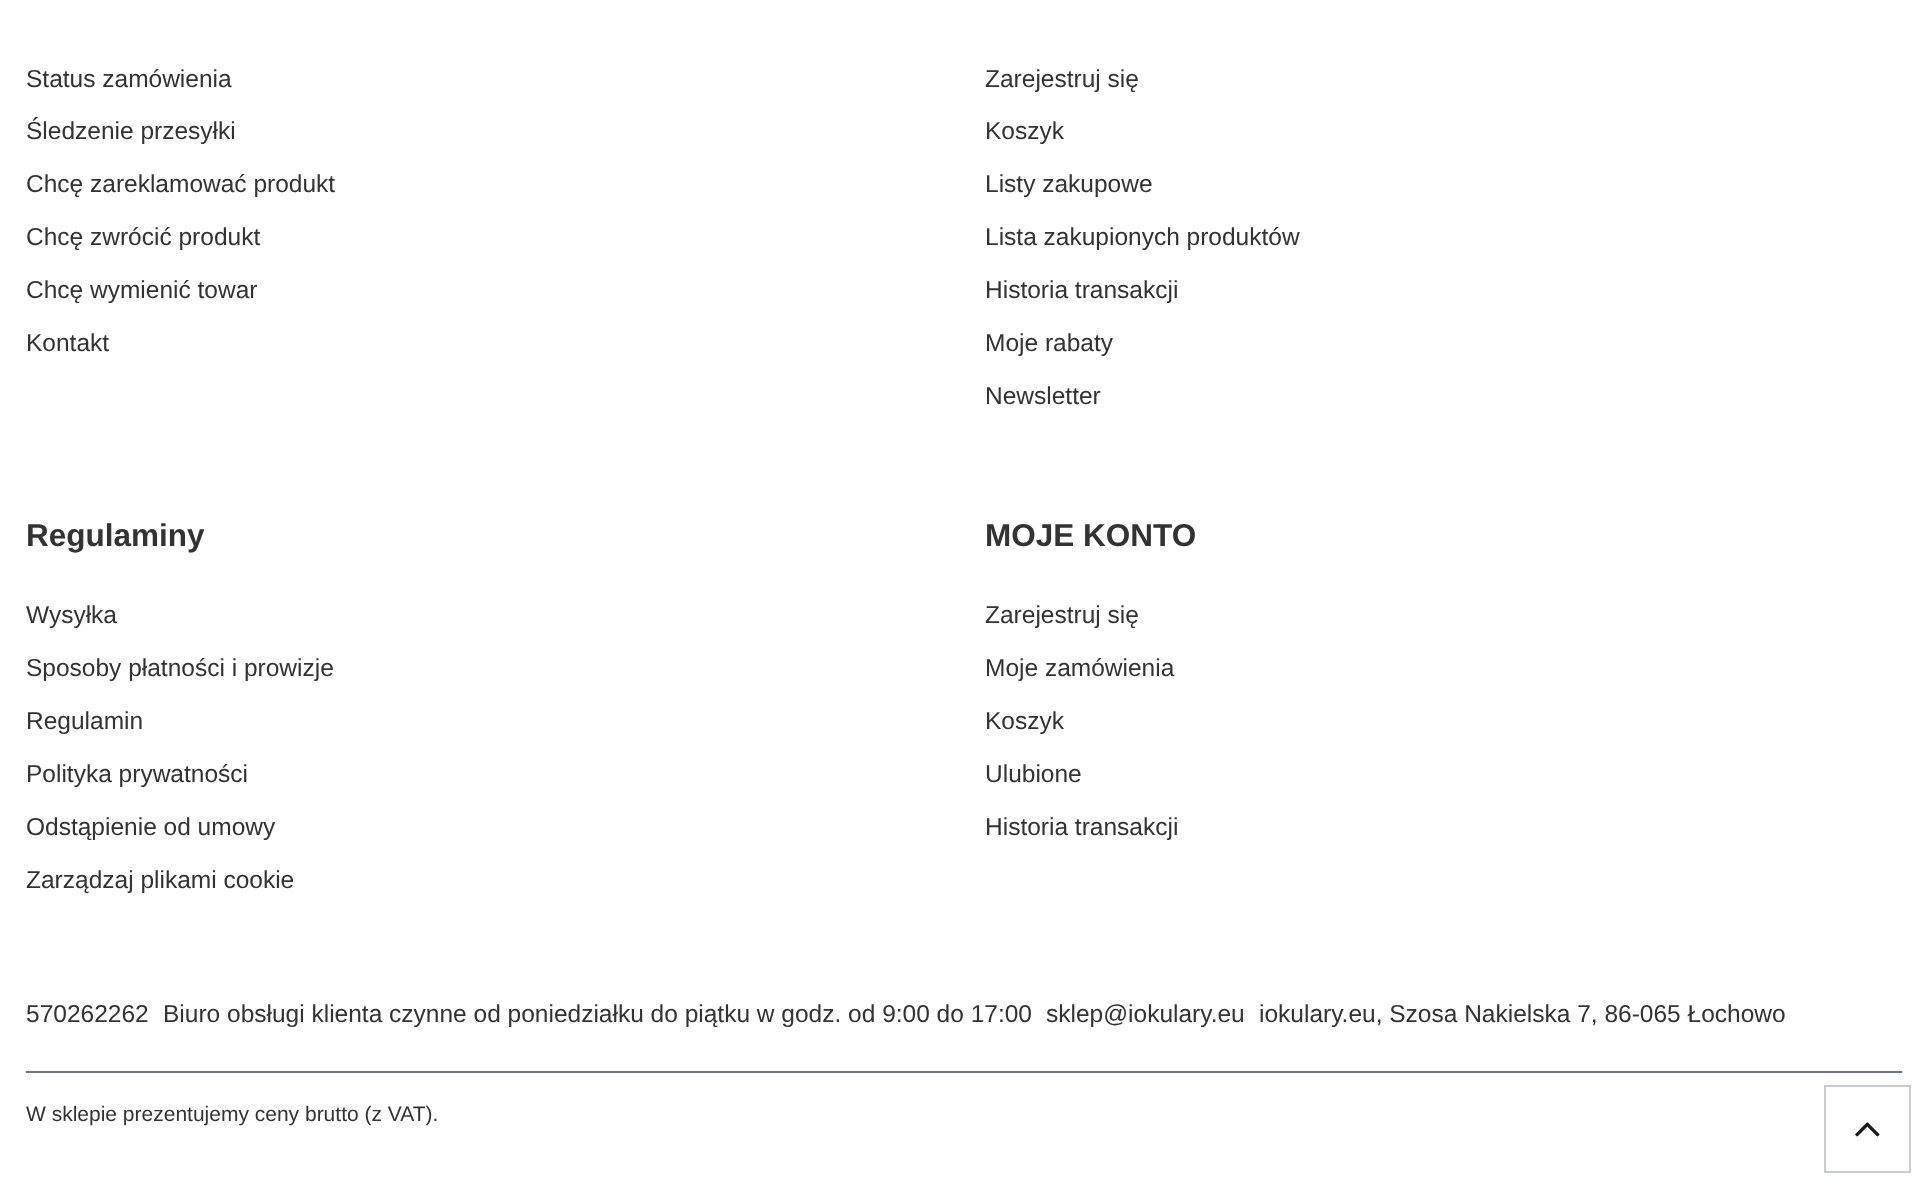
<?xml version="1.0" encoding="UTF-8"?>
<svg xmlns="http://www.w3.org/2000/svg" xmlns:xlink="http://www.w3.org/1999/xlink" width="1927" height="1190">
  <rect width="100%" height="100%" fill="#ffffff" />
  <rect x="26" y="1071" width="1876" height="2" fill="#6b7785" />
  <rect x="1825" y="1086" width="85" height="86" fill="none" stroke="#cacdce" stroke-width="2" />
  <image x="1855" y="1122" width="25" height="15" xlink:href="image1.png" />
  <text x="26" y="87" style="font-family: Liberation Sans; font-size: 24.5px; fill: #333333">Status zamówienia</text>
  <text x="26" y="139" style="font-family: Liberation Sans; font-size: 24.5px; fill: #333333">Śledzenie przesyłki</text>
  <text x="26" y="192" style="font-family: Liberation Sans; font-size: 24.5px; fill: #333333">Chcę zareklamować produkt</text>
  <text x="26" y="245" style="font-family: Liberation Sans; font-size: 24.5px; fill: #333333">Chcę zwrócić produkt</text>
  <text x="26" y="298" style="font-family: Liberation Sans; font-size: 24.5px; fill: #333333">Chcę wymienić towar</text>
  <text x="26" y="351" style="font-family: Liberation Sans; font-size: 24.5px; fill: #333333">Kontakt</text>
  <text x="985" y="87" style="font-family: Liberation Sans; font-size: 24.5px; fill: #333333">Zarejestruj się</text>
  <text x="985" y="139" style="font-family: Liberation Sans; font-size: 24.5px; fill: #333333">Koszyk</text>
  <text x="985" y="192" style="font-family: Liberation Sans; font-size: 24.5px; fill: #333333">Listy zakupowe</text>
  <text x="985" y="245" style="font-family: Liberation Sans; font-size: 24.5px; fill: #333333">Lista zakupionych produktów</text>
  <text x="985" y="298" style="font-family: Liberation Sans; font-size: 24.5px; fill: #333333">Historia transakcji</text>
  <text x="985" y="351" style="font-family: Liberation Sans; font-size: 24.5px; fill: #333333">Moje rabaty</text>
  <text x="985" y="404" style="font-family: Liberation Sans; font-size: 24.5px; fill: #333333">Newsletter</text>
  <text x="26" y="546" style="font-family: Liberation Sans; font-size: 31.5px; font-weight: bold; fill: #333333">Regulaminy</text>
  <text x="26" y="623" style="font-family: Liberation Sans; font-size: 24.5px; fill: #333333">Wysyłka</text>
  <text x="26" y="676" style="font-family: Liberation Sans; font-size: 24.5px; fill: #333333">Sposoby płatności i prowizje</text>
  <text x="26" y="729" style="font-family: Liberation Sans; font-size: 24.5px; fill: #333333">Regulamin</text>
  <text x="26" y="782" style="font-family: Liberation Sans; font-size: 24.5px; fill: #333333">Polityka prywatności</text>
  <text x="26" y="835" style="font-family: Liberation Sans; font-size: 24.5px; fill: #333333">Odstąpienie od umowy</text>
  <text x="26" y="888" style="font-family: Liberation Sans; font-size: 24.5px; fill: #333333">Zarządzaj plikami cookie</text>
  <text x="985" y="546" style="font-family: Liberation Sans; font-size: 31.5px; font-weight: bold; fill: #333333">MOJE KONTO</text>
  <text x="985" y="623" style="font-family: Liberation Sans; font-size: 24.5px; fill: #333333">Zarejestruj się</text>
  <text x="985" y="676" style="font-family: Liberation Sans; font-size: 24.5px; fill: #333333">Moje zamówienia</text>
  <text x="985" y="729" style="font-family: Liberation Sans; font-size: 24.5px; fill: #333333">Koszyk</text>
  <text x="985" y="782" style="font-family: Liberation Sans; font-size: 24.5px; fill: #333333">Ulubione</text>
  <text x="985" y="835" style="font-family: Liberation Sans; font-size: 24.5px; fill: #333333">Historia transakcji</text>
  <text x="26" y="1022" style="font-family: Liberation Sans; font-size: 24.5px; fill: #333333">570262262</text>
  <text x="163" y="1022" style="font-family: Liberation Sans; font-size: 24.5px; fill: #333333">Biuro obsługi klienta czynne od poniedziałku do piątku w godz. od 9:00 do 17:00</text>
  <text x="1046" y="1022" style="font-family: Liberation Sans; font-size: 24.5px; fill: #333333">sklep@iokulary.eu</text>
  <text x="1259" y="1022" style="font-family: Liberation Sans; font-size: 24.5px; fill: #333333">iokulary.eu, Szosa Nakielska 7, 86-065 Łochowo</text>
  <text x="26" y="1121" style="font-family: Liberation Sans; font-size: 21px; fill: #333333">W sklepie prezentujemy ceny brutto (z VAT).</text>
</svg>
